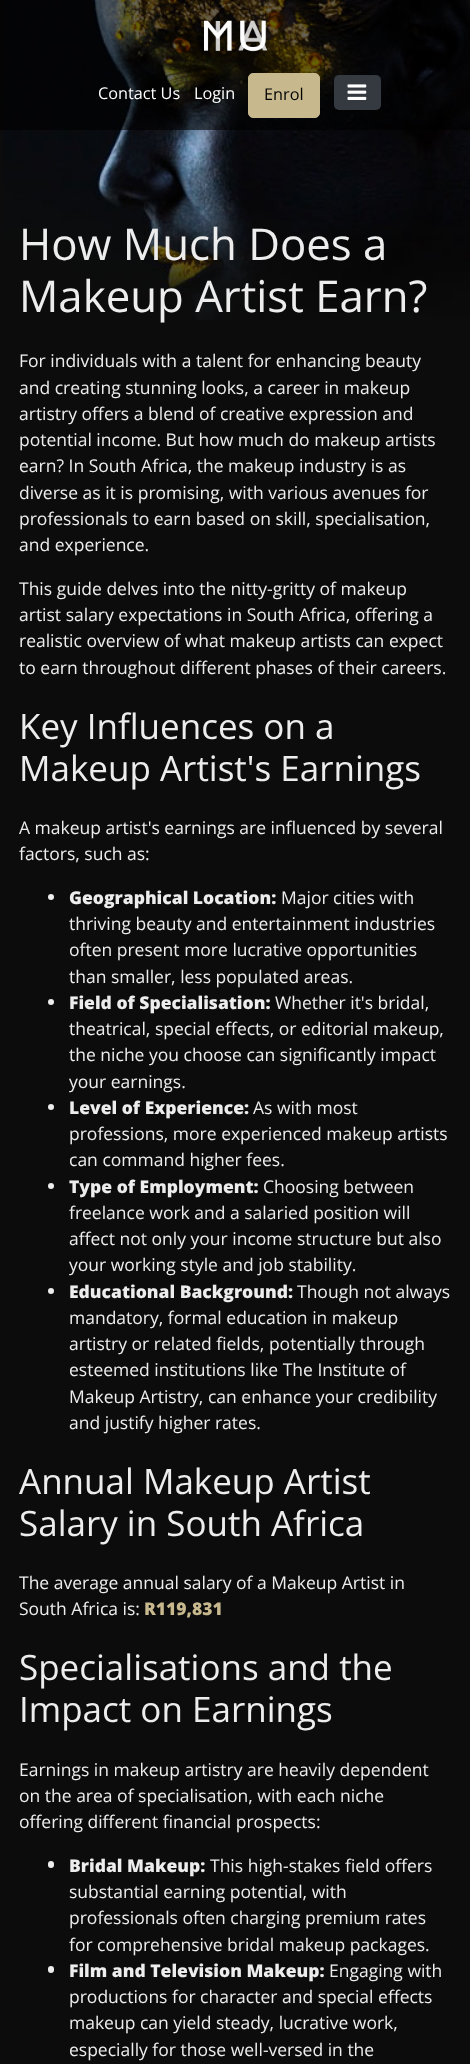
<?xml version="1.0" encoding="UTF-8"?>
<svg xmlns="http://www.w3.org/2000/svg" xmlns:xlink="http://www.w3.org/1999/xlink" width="470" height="2064">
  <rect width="100%" height="100%" fill="#0c0c0c" />
  <image x="3" y="0" width="467" height="320" xlink:href="image1.png" />
  <rect width="470" height="130" fill="#000000" fill-opacity="0.6" />
  <image x="204" y="20" width="64" height="32" xlink:href="image2.png" />
  <rect x="248.5" y="73.5" width="71" height="44" rx="4.5" fill="#c7b88e" stroke="#c7b88e" />
  <rect x="334" y="75" width="47" height="35" rx="5" fill="#343a40" />
  <image x="347" y="84" width="20" height="16" xlink:href="image3.png" />
  <circle cx="51" cy="897" r="3" fill="#ededed" />
  <circle cx="51" cy="1002" r="3" fill="#ededed" />
  <circle cx="51" cy="1107" r="3" fill="#ededed" />
  <circle cx="51" cy="1186" r="3" fill="#ededed" />
  <circle cx="51" cy="1291" r="3" fill="#ededed" />
  <rect x="48" y="1861" width="6" height="7" rx="3" fill="#ededed" />
  <rect x="48" y="1966" width="6" height="7" rx="3" fill="#ededed" />
  <text x="98" y="99" style="font-family: Open Sans; font-size: 16.25px; fill: #ffffff">Contact Us</text>
  <text x="194" y="99" style="font-family: Open Sans; font-size: 16.25px; fill: #ffffff">Login</text>
  <text x="264" y="100" style="font-family: Open Sans; font-size: 16.25px; fill: #000000">Enrol</text>
  <text x="19" y="260" style="font-family: Open Sans; font-size: 43.75px; fill: #ededed">How Much Does a</text>
  <text x="19" y="312" style="font-family: Open Sans; font-size: 43.75px; fill: #ededed">Makeup Artist Earn?</text>
  <text x="19" y="367" style="font-family: Open Sans; font-size: 17.5px; fill: #ededed">For individuals with a talent for enhancing beauty</text>
  <text x="19" y="394" style="font-family: Open Sans; font-size: 17.5px; fill: #ededed">and creating stunning looks, a career in makeup</text>
  <text x="19" y="420" style="font-family: Open Sans; font-size: 17.5px; fill: #ededed">artistry offers a blend of creative expression and</text>
  <text x="19" y="446" style="font-family: Open Sans; font-size: 17.5px; fill: #ededed">potential income. But how much do makeup artists</text>
  <text x="19" y="472" style="font-family: Open Sans; font-size: 17.5px; fill: #ededed">earn? In South Africa, the makeup industry is as</text>
  <text x="19" y="499" style="font-family: Open Sans; font-size: 17.5px; fill: #ededed">diverse as it is promising, with various avenues for</text>
  <text x="19" y="525" style="font-family: Open Sans; font-size: 17.5px; fill: #ededed">professionals to earn based on skill, specialisation,</text>
  <text x="19" y="551" style="font-family: Open Sans; font-size: 17.5px; fill: #ededed">and experience.</text>
  <text x="19" y="595" style="font-family: Open Sans; font-size: 17.5px; fill: #ededed">This guide delves into the nitty-gritty of makeup</text>
  <text x="19" y="621" style="font-family: Open Sans; font-size: 17.5px; fill: #ededed">artist salary expectations in South Africa, offering a</text>
  <text x="19" y="647" style="font-family: Open Sans; font-size: 17.5px; fill: #ededed">realistic overview of what makeup artists can expect</text>
  <text x="19" y="674" style="font-family: Open Sans; font-size: 17.5px; fill: #ededed">to earn throughout different phases of their careers.</text>
  <text x="19" y="739" style="font-family: Open Sans; font-size: 35px; fill: #ededed">Key Influences on a</text>
  <text x="19" y="781" style="font-family: Open Sans; font-size: 35px; fill: #ededed">Makeup Artist's Earnings</text>
  <text x="19" y="834" style="font-family: Open Sans; font-size: 17.5px; fill: #ededed">A makeup artist's earnings are influenced by several</text>
  <text x="19" y="860" style="font-family: Open Sans; font-size: 17.5px; fill: #ededed">factors, such as:</text>
  <text x="69" y="904" style="font-family: Open Sans; font-size: 17.5px; font-weight: 800; fill: #ededed">Geographical Location:</text>
  <text x="281" y="904" style="font-family: Open Sans; font-size: 17.5px; fill: #ededed">Major cities with</text>
  <text x="69" y="930" style="font-family: Open Sans; font-size: 17.5px; fill: #ededed">thriving beauty and entertainment industries</text>
  <text x="69" y="956" style="font-family: Open Sans; font-size: 17.5px; fill: #ededed">often present more lucrative opportunities</text>
  <text x="69" y="983" style="font-family: Open Sans; font-size: 17.5px; fill: #ededed">than smaller, less populated areas.</text>
  <text x="69" y="1009" style="font-family: Open Sans; font-size: 17.5px; font-weight: 800; fill: #ededed">Field of Specialisation:</text>
  <text x="275" y="1009" style="font-family: Open Sans; font-size: 17.5px; fill: #ededed">Whether it's bridal,</text>
  <text x="69" y="1035" style="font-family: Open Sans; font-size: 17.5px; fill: #ededed">theatrical, special effects, or editorial makeup,</text>
  <text x="69" y="1061" style="font-family: Open Sans; font-size: 17.5px; fill: #ededed">the niche you choose can significantly impact</text>
  <text x="69" y="1088" style="font-family: Open Sans; font-size: 17.5px; fill: #ededed">your earnings.</text>
  <text x="69" y="1114" style="font-family: Open Sans; font-size: 17.5px; font-weight: 800; fill: #ededed">Level of Experience:</text>
  <text x="253" y="1114" style="font-family: Open Sans; font-size: 17.5px; fill: #ededed">As with most</text>
  <text x="69" y="1140" style="font-family: Open Sans; font-size: 17.5px; fill: #ededed">professions, more experienced makeup artists</text>
  <text x="69" y="1166" style="font-family: Open Sans; font-size: 17.5px; fill: #ededed">can command higher fees.</text>
  <text x="69" y="1193" style="font-family: Open Sans; font-size: 17.5px; font-weight: 800; fill: #ededed">Type of Employment:</text>
  <text x="263" y="1193" style="font-family: Open Sans; font-size: 17.5px; fill: #ededed">Choosing between</text>
  <text x="69" y="1219" style="font-family: Open Sans; font-size: 17.5px; fill: #ededed">freelance work and a salaried position will</text>
  <text x="69" y="1245" style="font-family: Open Sans; font-size: 17.5px; fill: #ededed">affect not only your income structure but also</text>
  <text x="69" y="1271" style="font-family: Open Sans; font-size: 17.5px; fill: #ededed">your working style and job stability.</text>
  <text x="69" y="1298" style="font-family: Open Sans; font-size: 17.5px; font-weight: 800; fill: #ededed">Educational Background:</text>
  <text x="297" y="1298" style="font-family: Open Sans; font-size: 17.5px; fill: #ededed">Though not always</text>
  <text x="69" y="1324" style="font-family: Open Sans; font-size: 17.5px; fill: #ededed">mandatory, formal education in makeup</text>
  <text x="69" y="1350" style="font-family: Open Sans; font-size: 17.5px; fill: #ededed">artistry or related fields, potentially through</text>
  <text x="69" y="1376" style="font-family: Open Sans; font-size: 17.5px; fill: #ededed">esteemed institutions like The Institute of</text>
  <text x="69" y="1403" style="font-family: Open Sans; font-size: 17.5px; fill: #ededed">Makeup Artistry, can enhance your credibility</text>
  <text x="69" y="1429" style="font-family: Open Sans; font-size: 17.5px; fill: #ededed">and justify higher rates.</text>
  <text x="19" y="1494" style="font-family: Open Sans; font-size: 35px; fill: #ededed">Annual Makeup Artist</text>
  <text x="19" y="1536" style="font-family: Open Sans; font-size: 35px; fill: #ededed">Salary in South Africa</text>
  <text x="19" y="1589" style="font-family: Open Sans; font-size: 17.5px; fill: #ededed">The average annual salary of a Makeup Artist in</text>
  <text x="19" y="1615" style="font-family: Open Sans; font-size: 17.5px; fill: #ededed">South Africa is:</text>
  <text x="144" y="1615" style="font-family: Open Sans; font-size: 17.5px; font-weight: 800; fill: #c7b88e">R119,831</text>
  <text x="19" y="1680" style="font-family: Open Sans; font-size: 35px; fill: #ededed">Specialisations and the</text>
  <text x="19" y="1722" style="font-family: Open Sans; font-size: 35px; fill: #ededed">Impact on Earnings</text>
  <text x="19" y="1776" style="font-family: Open Sans; font-size: 17.5px; fill: #ededed">Earnings in makeup artistry are heavily dependent</text>
  <text x="19" y="1802" style="font-family: Open Sans; font-size: 17.5px; fill: #ededed">on the area of specialisation, with each niche</text>
  <text x="19" y="1828" style="font-family: Open Sans; font-size: 17.5px; fill: #ededed">offering different financial prospects:</text>
  <text x="69" y="1872" style="font-family: Open Sans; font-size: 17.5px; font-weight: 800; fill: #ededed">Bridal Makeup:</text>
  <text x="210" y="1872" style="font-family: Open Sans; font-size: 17.5px; fill: #ededed">This high-stakes field offers</text>
  <text x="69" y="1898" style="font-family: Open Sans; font-size: 17.5px; fill: #ededed">substantial earning potential, with</text>
  <text x="69" y="1924" style="font-family: Open Sans; font-size: 17.5px; fill: #ededed">professionals often charging premium rates</text>
  <text x="69" y="1951" style="font-family: Open Sans; font-size: 17.5px; fill: #ededed">for comprehensive bridal makeup packages.</text>
  <text x="69" y="1977" style="font-family: Open Sans; font-size: 17.5px; font-weight: 800; fill: #ededed">Film and Television Makeup:</text>
  <text x="329" y="1977" style="font-family: Open Sans; font-size: 17.5px; fill: #ededed">Engaging with</text>
  <text x="69" y="2003" style="font-family: Open Sans; font-size: 17.5px; fill: #ededed">productions for character and special effects</text>
  <text x="69" y="2029" style="font-family: Open Sans; font-size: 17.5px; fill: #ededed">makeup can yield steady, lucrative work,</text>
  <text x="69" y="2056" style="font-family: Open Sans; font-size: 17.5px; fill: #ededed">especially for those well-versed in the</text>
</svg>
